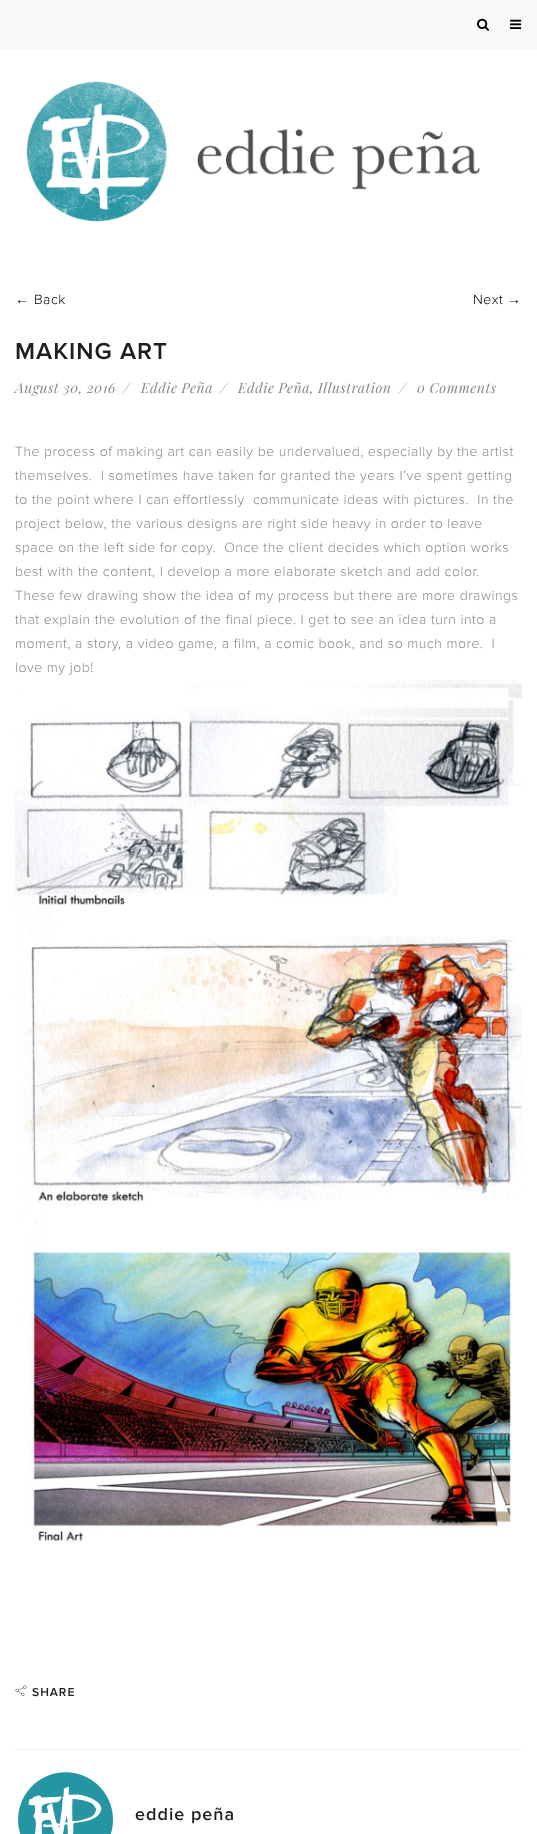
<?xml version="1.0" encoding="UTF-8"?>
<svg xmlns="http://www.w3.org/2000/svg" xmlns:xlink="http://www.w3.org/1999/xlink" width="537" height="1834">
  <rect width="100%" height="100%" fill="#ffffff" />
  <rect width="537" height="50" fill="#f8f8f8" />
  <image x="477" y="18" width="12" height="13" xlink:href="image1.png" />
  <image x="510" y="19" width="12" height="10" xlink:href="image2.png" />
  <image x="26" y="81" width="454" height="141" xlink:href="image3.png" />
  <image x="15" y="680" width="507" height="864" xlink:href="image4.png" />
  <rect x="15" y="1749" width="507" height="1" fill="#eeeeee" />
  <image x="15" y="1685" width="12" height="11" xlink:href="image5.png" />
  <image x="18" y="1772" width="96" height="62" xlink:href="image6.png" />
  <text x="15" y="304" style="font-family: Liberation Serif; font-size: 14px; letter-spacing: 0.5px; fill: #000000">←</text>
  <text x="34" y="304" style="font-family: Proxima Nova; font-size: 14px; font-weight: 300; letter-spacing: 0.5px; fill: #000000">Back</text>
  <text x="473" y="304" style="font-family: Proxima Nova; font-size: 14px; font-weight: 300; letter-spacing: 0.5px; fill: #000000">Next</text>
  <text x="507" y="304" style="font-family: Liberation Serif; font-size: 14px; letter-spacing: 0.5px; fill: #000000">→</text>
  <text x="15" y="359" style="font-family: Proxima Nova; font-size: 24px; font-weight: 600; letter-spacing: 1px; fill: #1f1f1f">MAKING ART</text>
  <text x="15" y="393" style="font-family: Playfair Display; font-size: 14px; font-style: italic; letter-spacing: 0.5px; fill: #888888">August 30, 2016</text>
  <text x="123" y="393" style="font-family: Playfair Display; font-size: 14px; font-style: italic; letter-spacing: 0.5px; fill: #888888">/</text>
  <text x="141" y="393" style="font-family: Playfair Display; font-size: 14px; font-style: italic; letter-spacing: 0.5px; fill: #888888">Eddie Peña</text>
  <text x="220" y="393" style="font-family: Playfair Display; font-size: 14px; font-style: italic; letter-spacing: 0.5px; fill: #888888">/</text>
  <text x="238" y="393" style="font-family: Playfair Display; font-size: 14px; font-style: italic; letter-spacing: 0.5px; fill: #888888">Eddie Peña, Illustration</text>
  <text x="399" y="393" style="font-family: Playfair Display; font-size: 14px; font-style: italic; letter-spacing: 0.5px; fill: #888888">/</text>
  <text x="417" y="393" style="font-family: Playfair Display; font-size: 14px; font-style: italic; letter-spacing: 0.5px; fill: #888888">0 Comments</text>
  <text x="15" y="456" style="font-family: Proxima Nova; font-size: 14px; font-weight: 300; letter-spacing: 0.5px; fill: #888888">The process of making art can easily be undervalued, especially by the artist</text>
  <text x="15" y="480" style="font-family: Proxima Nova; font-size: 14px; font-weight: 300; letter-spacing: 0.5px; fill: #888888" xml:space="preserve">themselves.  I sometimes have taken for granted the years I’ve spent getting</text>
  <text x="15" y="504" style="font-family: Proxima Nova; font-size: 14px; font-weight: 300; letter-spacing: 0.5px; fill: #888888" xml:space="preserve">to the point where I can effortlessly  communicate ideas with pictures.  In the</text>
  <text x="15" y="528" style="font-family: Proxima Nova; font-size: 14px; font-weight: 300; letter-spacing: 0.5px; fill: #888888">project below, the various designs are right side heavy in order to leave</text>
  <text x="15" y="552" style="font-family: Proxima Nova; font-size: 14px; font-weight: 300; letter-spacing: 0.5px; fill: #888888" xml:space="preserve">space on the left side for copy.  Once the client decides which option works</text>
  <text x="15" y="576" style="font-family: Proxima Nova; font-size: 14px; font-weight: 300; letter-spacing: 0.5px; fill: #888888">best with the content, I develop a more elaborate sketch and add color.</text>
  <text x="15" y="600" style="font-family: Proxima Nova; font-size: 14px; font-weight: 300; letter-spacing: 0.5px; fill: #888888">These few drawing show the idea of my process but there are more drawings</text>
  <text x="15" y="624" style="font-family: Proxima Nova; font-size: 14px; font-weight: 300; letter-spacing: 0.5px; fill: #888888">that explain the evolution of the final piece. I get to see an idea turn into a</text>
  <text x="15" y="648" style="font-family: Proxima Nova; font-size: 14px; font-weight: 300; letter-spacing: 0.5px; fill: #888888" xml:space="preserve">moment, a story, a video game, a film, a comic book, and so much more.  I</text>
  <text x="15" y="672" style="font-family: Proxima Nova; font-size: 14px; font-weight: 300; letter-spacing: 0.5px; fill: #888888">love my job!</text>
  <text x="32" y="1696" style="font-family: Proxima Nova; font-size: 12px; font-weight: 600; letter-spacing: 1px; fill: #1f1f1f">SHARE</text>
  <text x="135" y="1820" style="font-family: Proxima Nova; font-size: 18px; font-weight: 600; letter-spacing: 1px; fill: #1f1f1f">eddie peña</text>
</svg>
